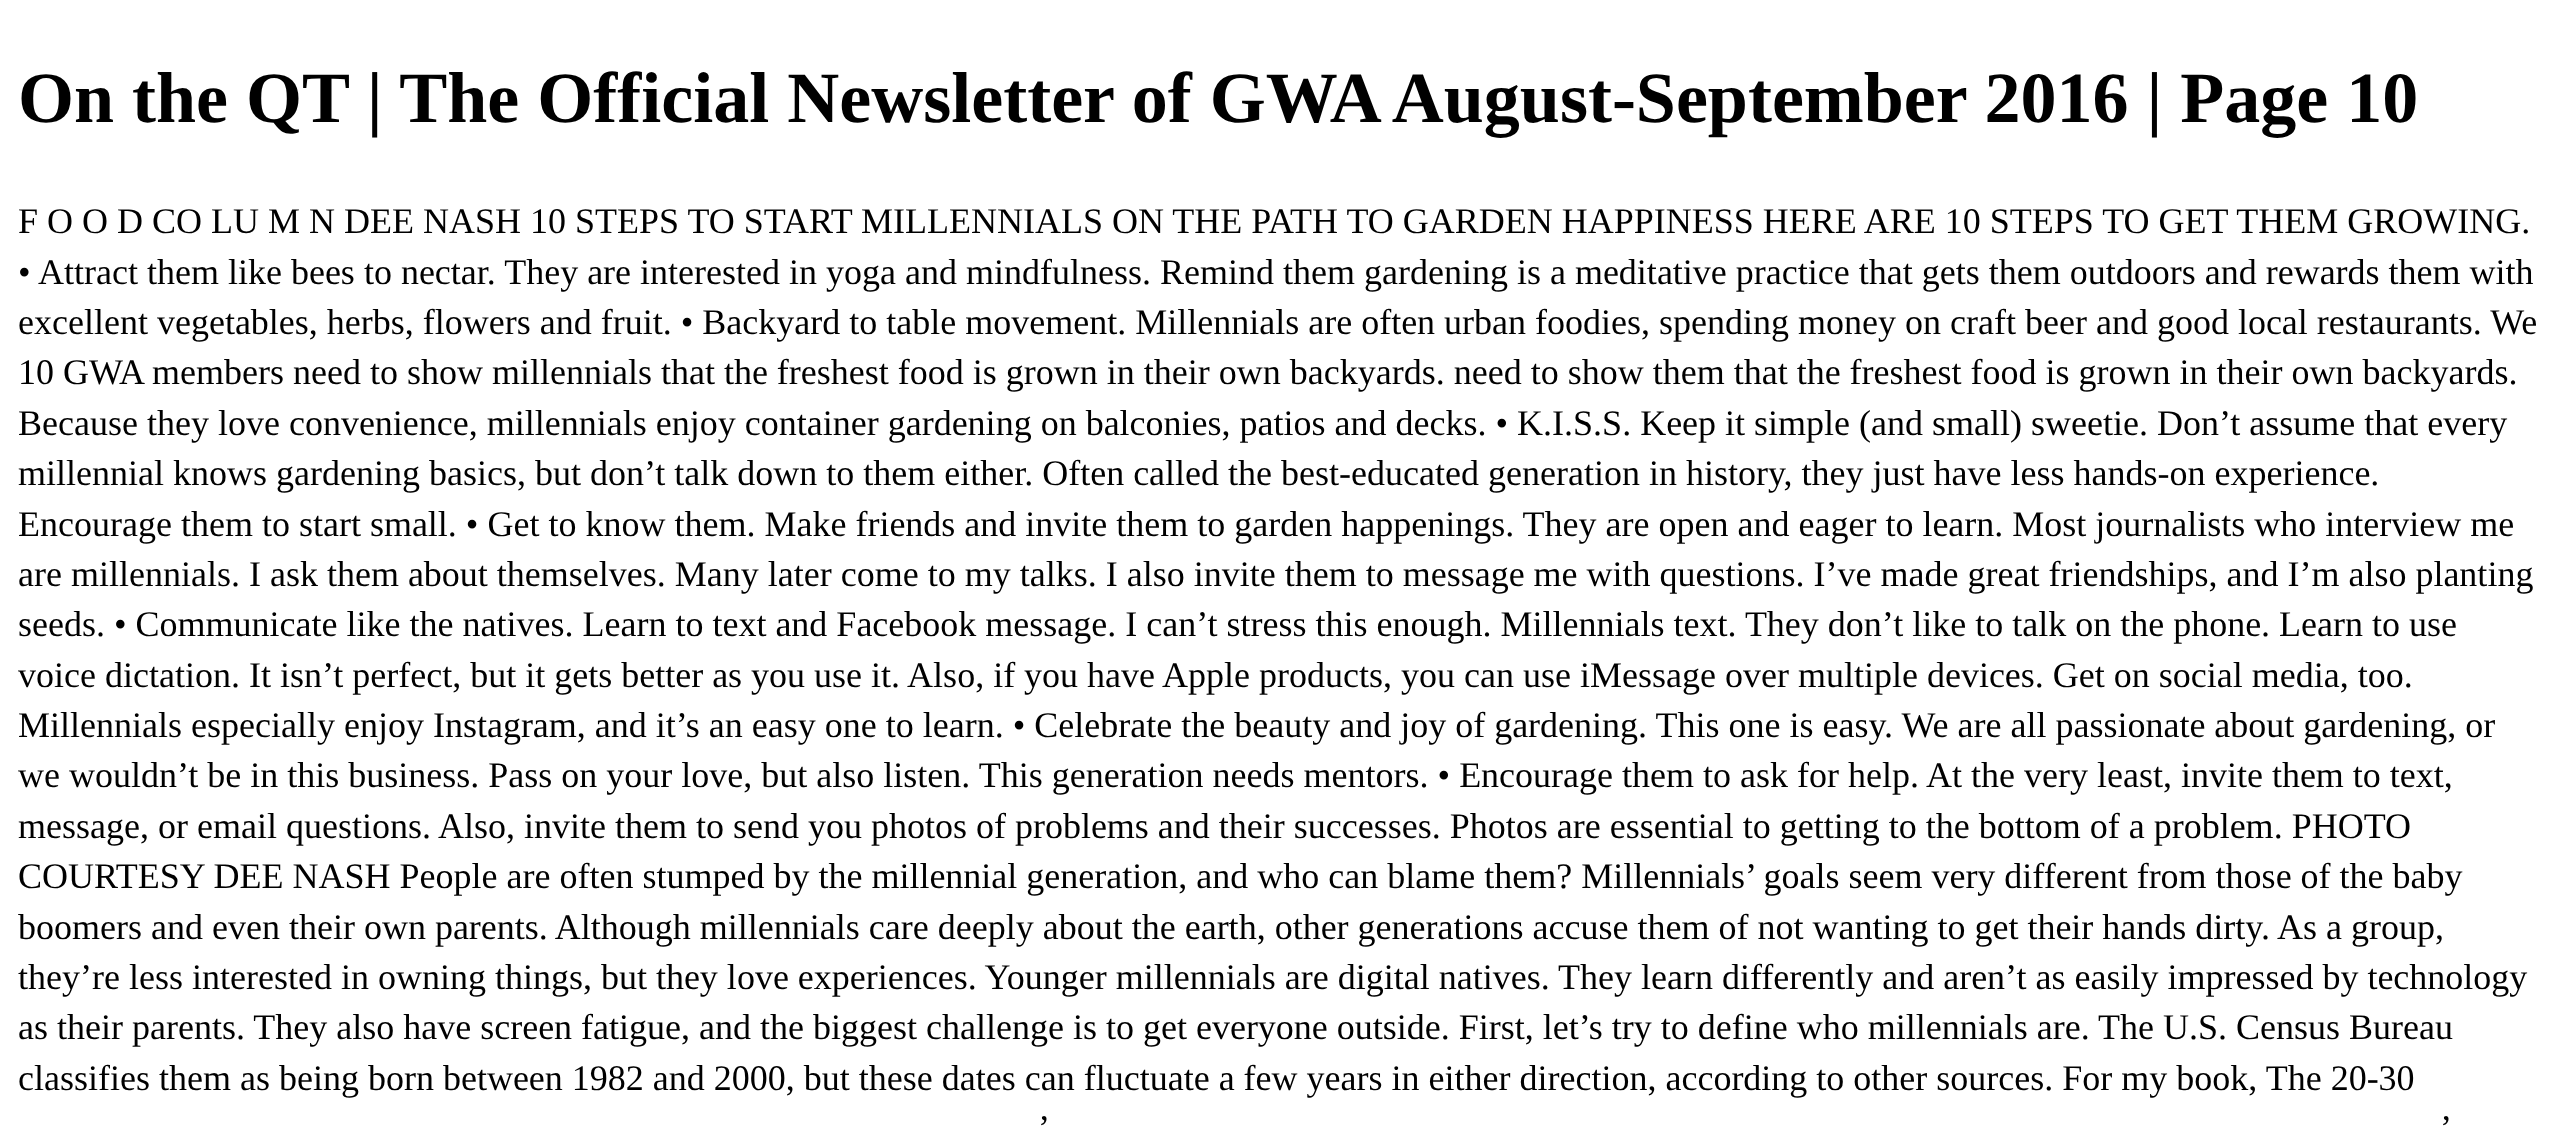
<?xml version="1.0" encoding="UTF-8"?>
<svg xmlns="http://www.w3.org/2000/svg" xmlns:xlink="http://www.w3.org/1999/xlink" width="2555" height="1129">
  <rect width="100%" height="100%" fill="#ffffff" />
  <text x="18" y="122" style="font-family: Liberation Serif; font-size: 72px; font-weight: bold; fill: #000000">On the QT | The Official Newsletter of GWA August-September 2016 | Page 10</text>
  <text x="18" y="233" style="font-family: Liberation Serif; font-size: 36px; fill: #000000">F O O D CO LU M N DEE NASH 10 STEPS TO START MILLENNIALS ON THE PATH TO GARDEN HAPPINESS HERE ARE 10 STEPS TO GET THEM GROWING.</text>
  <text x="18" y="284" style="font-family: Liberation Serif; font-size: 36px; fill: #000000">•</text>
  <text x="38" y="284" style="font-family: Liberation Serif; font-size: 36px; fill: #000000">Attract them like bees to nectar. They are interested in yoga and mindfulness. Remind them gardening is a meditative practice that gets them outdoors and rewards them with</text>
  <text x="18" y="334" style="font-family: Liberation Serif; font-size: 36px; fill: #000000">excellent vegetables, herbs, flowers and fruit. • Backyard to table movement. Millennials are often urban foodies, spending money on craft beer and good local restaurants. We</text>
  <text x="18" y="384" style="font-family: Liberation Serif; font-size: 36px; fill: #000000">10 GWA members need to show millennials that the freshest food is grown in their own backyards. need to show them that the freshest food is grown in their own backyards.</text>
  <text x="18" y="435" style="font-family: Liberation Serif; font-size: 36px; fill: #000000">Because they love convenience, millennials enjoy container gardening on balconies, patios and decks. • K.I.S.S. Keep it simple (and small) sweetie. Don’t assume that every</text>
  <text x="18" y="485" style="font-family: Liberation Serif; font-size: 36px; fill: #000000">millennial knows gardening basics, but don’t talk down to them either. Often called the best-educated generation in history, they just have less hands-on experience.</text>
  <text x="18" y="536" style="font-family: Liberation Serif; font-size: 36px; fill: #000000">Encourage them to start small. • Get to know them. Make friends and invite them to garden happenings. They are open and eager to learn. Most journalists who interview me</text>
  <text x="18" y="586" style="font-family: Liberation Serif; font-size: 36px; fill: #000000">are millennials. I ask them about themselves. Many later come to my talks. I also invite them to message me with questions. I’ve made great friendships, and I’m also planting</text>
  <text x="18" y="636" style="font-family: Liberation Serif; font-size: 36px; fill: #000000">seeds. • Communicate like the natives. Learn to text and Facebook message. I can’t stress this enough. Millennials text. They don’t like to talk on the phone. Learn to use</text>
  <text x="18" y="687" style="font-family: Liberation Serif; font-size: 36px; fill: #000000">voice dictation. It isn’t perfect, but it gets better as you use it. Also, if you have Apple products, you can use iMessage over multiple devices. Get on social media, too.</text>
  <text x="18" y="737" style="font-family: Liberation Serif; font-size: 36px; fill: #000000">Millennials especially enjoy Instagram, and it’s an easy one to learn. • Celebrate the beauty and joy of gardening. This one is easy. We are all passionate about gardening, or</text>
  <text x="18" y="787" style="font-family: Liberation Serif; font-size: 36px; fill: #000000">we wouldn’t be in this business. Pass on your love, but also listen. This generation needs mentors. • Encourage them to ask for help. At the very least, invite them to text,</text>
  <text x="18" y="838" style="font-family: Liberation Serif; font-size: 36px; fill: #000000">message, or email questions. Also, invite them to send you photos of problems and their successes. Photos are essential to getting to the bottom of a problem. PHOTO</text>
  <text x="18" y="888" style="font-family: Liberation Serif; font-size: 36px; fill: #000000">COURTESY DEE NASH People are often stumped by the millennial generation, and who can blame them? Millennials’ goals seem very different from those of the baby</text>
  <text x="18" y="939" style="font-family: Liberation Serif; font-size: 36px; fill: #000000">boomers and even their own parents. Although millennials care deeply about the earth, other generations accuse them of not wanting to get their hands dirty. As a group,</text>
  <text x="18" y="989" style="font-family: Liberation Serif; font-size: 36px; fill: #000000">they’re less interested in owning things, but they love experiences. Younger millennials are digital natives. They learn differently and aren’t as easily impressed by technology</text>
  <text x="18" y="1039" style="font-family: Liberation Serif; font-size: 36px; fill: #000000">as their parents. They also have screen fatigue, and the biggest challenge is to get everyone outside. First, let’s try to define who millennials are. The U.S. Census Bureau</text>
  <text x="18" y="1090" style="font-family: Liberation Serif; font-size: 36px; fill: #000000">classifies them as being born between 1982 and 2000, but these dates can fluctuate a few years in either direction, according to other sources. For my book, The 20-30</text>
  <text x="1038" y="1140" style="font-family: Liberation Serif; font-size: 36px; fill: #000000">’</text>
  <text x="2440" y="1140" style="font-family: Liberation Serif; font-size: 36px; fill: #000000">’</text>
</svg>
